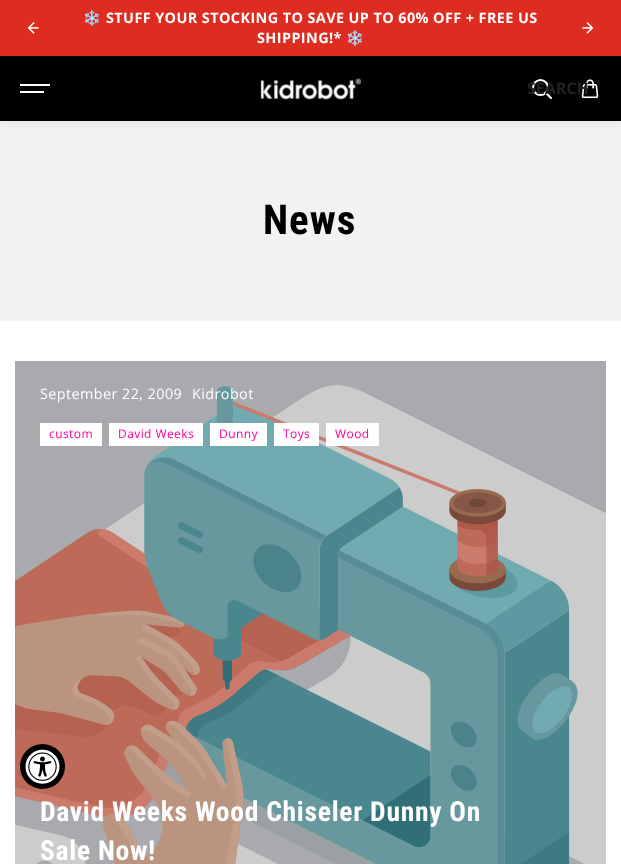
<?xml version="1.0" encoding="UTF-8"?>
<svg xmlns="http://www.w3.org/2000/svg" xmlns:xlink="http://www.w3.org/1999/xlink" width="621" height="864">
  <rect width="100%" height="100%" fill="#ffffff" />
  <rect width="621" height="56" fill="#df2c21" />
  <image x="27" y="22" width="12" height="12" xlink:href="image1.png" />
  <image x="582" y="22" width="12" height="12" xlink:href="image2.png" />
  <rect y="121" width="621" height="200" fill="#f2f2f2" />
  <rect y="59" width="621" height="65" fill="#000000" fill-opacity="0.05" filter="blur(4px)" />
  <rect y="56" width="621" height="65" fill="#000000" />
  <rect x="20" y="84" width="30" height="2" fill="#ffffff" />
  <rect x="20" y="91" width="24" height="2" fill="#ffffff" />
  <image x="260" y="78" width="101" height="22" xlink:href="image3.png" />
  <circle cx="540.5" cy="87.5" r="7.5" fill="none" stroke="#ffffff" stroke-width="2.1" />
  <path d="M 545.5 92.5 l 5.5 5.5" fill="none" stroke="#ffffff" stroke-width="2.1" stroke-linecap="round" />
  <image x="581" y="79" width="18" height="20" xlink:href="image4.png" />
  <image x="15" y="361" width="591" height="503" xlink:href="image5.png" />
  <rect x="40" y="423" width="62" height="23" fill="#ffffff" />
  <rect x="109" y="423" width="94" height="23" fill="#ffffff" />
  <rect x="210" y="423" width="57" height="23" fill="#ffffff" />
  <rect x="274" y="423" width="45" height="23" fill="#ffffff" />
  <rect x="326" y="423" width="53" height="23" fill="#ffffff" />
  <circle cx="42.5" cy="766.5" r="22.5" fill="#000000" />
  <image x="25" y="749" width="35" height="35" xlink:href="image6.png" />
  <text x="83" y="23" style="font-family: Noto Color Emoji; font-size: 14.4px; font-weight: bold; letter-spacing: 0.42px; fill: #ffffff">❄️</text>
  <text x="106" y="23" style="font-family: Open Sans; font-size: 14.4px; font-weight: bold; letter-spacing: 0.42px; fill: #ffffff">STUFF YOUR STOCKING TO SAVE UP TO 60% OFF + FREE US</text>
  <text x="257" y="43" style="font-family: Open Sans; font-size: 14.4px; font-weight: bold; letter-spacing: 0.42px; fill: #ffffff">SHIPPING!*</text>
  <text x="346" y="43" style="font-family: Noto Color Emoji; font-size: 14.4px; font-weight: bold; letter-spacing: 0.42px; fill: #ffffff">❄️</text>
  <text x="527" y="94" style="font-family: Open Sans; font-size: 16px; font-weight: bold; fill: #222222">SEARCH</text>
  <text x="263" y="234" style="font-family: Roboto Condensed; font-size: 41px; font-weight: bold; letter-spacing: 1px; fill: #000000">News</text>
  <text x="40" y="399" style="font-family: Open Sans; font-size: 14.4px; letter-spacing: 0.42px; fill: #ffffff">September 22, 2009</text>
  <text x="192" y="399" style="font-family: Open Sans; font-size: 14.4px; letter-spacing: 0.42px; fill: #ffffff">Kidrobot</text>
  <text x="49" y="438" style="font-family: Open Sans; font-size: 12px; letter-spacing: 0.42px; fill: #ff009d">custom</text>
  <text x="118" y="438" style="font-family: Open Sans; font-size: 12px; letter-spacing: 0.42px; fill: #ff009d">David Weeks</text>
  <text x="219" y="438" style="font-family: Open Sans; font-size: 12px; letter-spacing: 0.42px; fill: #ff009d">Dunny</text>
  <text x="283" y="438" style="font-family: Open Sans; font-size: 12px; letter-spacing: 0.42px; fill: #ff009d">Toys</text>
  <text x="335" y="438" style="font-family: Open Sans; font-size: 12px; letter-spacing: 0.42px; fill: #ff009d">Wood</text>
  <text x="40" y="821" style="font-family: Roboto Condensed; font-size: 27.6px; font-weight: bold; letter-spacing: 0.7px; fill: #ffffff">David Weeks Wood Chiseler Dunny On</text>
  <text x="40" y="860" style="font-family: Roboto Condensed; font-size: 27.6px; font-weight: bold; letter-spacing: 0.7px; fill: #ffffff">Sale Now!</text>
</svg>
